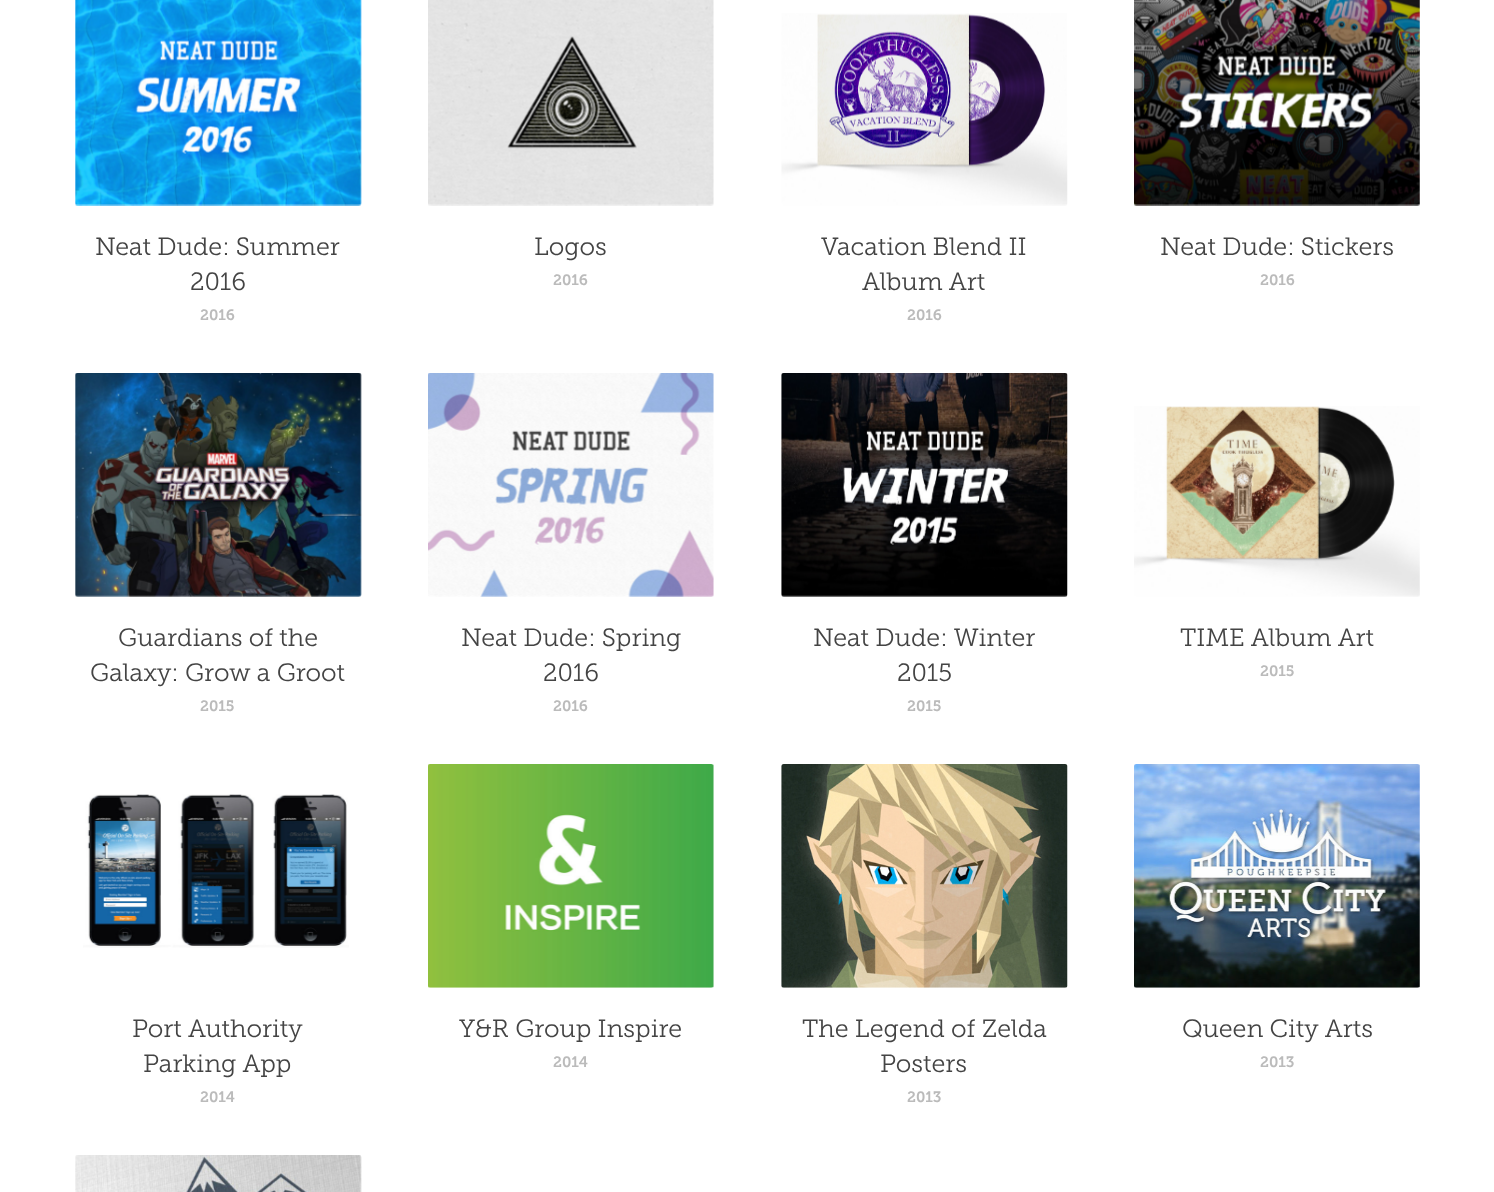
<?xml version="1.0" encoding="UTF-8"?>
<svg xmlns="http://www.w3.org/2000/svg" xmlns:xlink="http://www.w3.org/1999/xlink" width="1494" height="1192">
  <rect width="100%" height="100%" fill="#ffffff" />
  <image x="75" y="0" width="287" height="206" xlink:href="image1.png" />
  <image x="428" y="0" width="286" height="206" xlink:href="image2.png" />
  <image x="781" y="13" width="287" height="193" xlink:href="image3.png" />
  <image x="1134" y="0" width="286" height="206" xlink:href="image4.png" />
  <image x="75" y="373" width="287" height="224" xlink:href="image5.png" />
  <image x="428" y="373" width="286" height="224" xlink:href="image6.png" />
  <image x="781" y="373" width="287" height="224" xlink:href="image7.png" />
  <image x="1134" y="406" width="286" height="191" xlink:href="image8.png" />
  <image x="83" y="794" width="266" height="154" xlink:href="image9.png" />
  <image x="428" y="764" width="286" height="224" xlink:href="image10.png" />
  <image x="781" y="764" width="287" height="224" xlink:href="image11.png" />
  <image x="1134" y="764" width="286" height="224" xlink:href="image12.png" />
  <image x="75" y="1155" width="287" height="37" xlink:href="image13.png" />
  <text x="95" y="255" style="font-family: Museo Slab; font-size: 25px; font-weight: 300; fill: #444444">Neat Dude: Summer</text>
  <text x="190" y="290" style="font-family: Museo Slab; font-size: 25px; font-weight: 300; fill: #444444">2016</text>
  <text x="200" y="320" style="font-family: Museo Slab; font-size: 15px; font-weight: 600; fill: #bbbbbb">2016</text>
  <text x="534" y="255" style="font-family: Museo Slab; font-size: 25px; font-weight: 300; fill: #444444">Logos</text>
  <text x="553" y="285" style="font-family: Museo Slab; font-size: 15px; font-weight: 600; fill: #bbbbbb">2016</text>
  <text x="821" y="255" style="font-family: Museo Slab; font-size: 25px; font-weight: 300; fill: #444444">Vacation Blend II</text>
  <text x="862" y="290" style="font-family: Museo Slab; font-size: 25px; font-weight: 300; fill: #444444">Album Art</text>
  <text x="907" y="320" style="font-family: Museo Slab; font-size: 15px; font-weight: 600; fill: #bbbbbb">2016</text>
  <text x="1160" y="255" style="font-family: Museo Slab; font-size: 25px; font-weight: 300; fill: #444444">Neat Dude: Stickers</text>
  <text x="1260" y="285" style="font-family: Museo Slab; font-size: 15px; font-weight: 600; fill: #bbbbbb">2016</text>
  <text x="118" y="646" style="font-family: Museo Slab; font-size: 25px; font-weight: 300; fill: #444444">Guardians of the</text>
  <text x="90" y="681" style="font-family: Museo Slab; font-size: 25px; font-weight: 300; fill: #444444">Galaxy: Grow a Groot</text>
  <text x="200" y="711" style="font-family: Museo Slab; font-size: 15px; font-weight: 600; fill: #bbbbbb">2015</text>
  <text x="461" y="646" style="font-family: Museo Slab; font-size: 25px; font-weight: 300; fill: #444444">Neat Dude: Spring</text>
  <text x="543" y="681" style="font-family: Museo Slab; font-size: 25px; font-weight: 300; fill: #444444">2016</text>
  <text x="553" y="711" style="font-family: Museo Slab; font-size: 15px; font-weight: 600; fill: #bbbbbb">2016</text>
  <text x="813" y="646" style="font-family: Museo Slab; font-size: 25px; font-weight: 300; fill: #444444">Neat Dude: Winter</text>
  <text x="897" y="681" style="font-family: Museo Slab; font-size: 25px; font-weight: 300; fill: #444444">2015</text>
  <text x="907" y="711" style="font-family: Museo Slab; font-size: 15px; font-weight: 600; fill: #bbbbbb">2015</text>
  <text x="1180" y="646" style="font-family: Museo Slab; font-size: 25px; font-weight: 300; fill: #444444">TIME Album Art</text>
  <text x="1260" y="676" style="font-family: Museo Slab; font-size: 15px; font-weight: 600; fill: #bbbbbb">2015</text>
  <text x="132" y="1037" style="font-family: Museo Slab; font-size: 25px; font-weight: 300; fill: #444444">Port Authority</text>
  <text x="143" y="1072" style="font-family: Museo Slab; font-size: 25px; font-weight: 300; fill: #444444">Parking App</text>
  <text x="200" y="1102" style="font-family: Museo Slab; font-size: 15px; font-weight: 600; fill: #bbbbbb">2014</text>
  <text x="459" y="1037" style="font-family: Museo Slab; font-size: 25px; font-weight: 300; fill: #444444">Y&amp;R Group Inspire</text>
  <text x="553" y="1067" style="font-family: Museo Slab; font-size: 15px; font-weight: 600; fill: #bbbbbb">2014</text>
  <text x="802" y="1037" style="font-family: Museo Slab; font-size: 25px; font-weight: 300; fill: #444444">The Legend of Zelda</text>
  <text x="880" y="1072" style="font-family: Museo Slab; font-size: 25px; font-weight: 300; fill: #444444">Posters</text>
  <text x="907" y="1102" style="font-family: Museo Slab; font-size: 15px; font-weight: 600; fill: #bbbbbb">2013</text>
  <text x="1182" y="1037" style="font-family: Museo Slab; font-size: 25px; font-weight: 300; fill: #444444">Queen City Arts</text>
  <text x="1260" y="1067" style="font-family: Museo Slab; font-size: 15px; font-weight: 600; fill: #bbbbbb">2013</text>
</svg>
